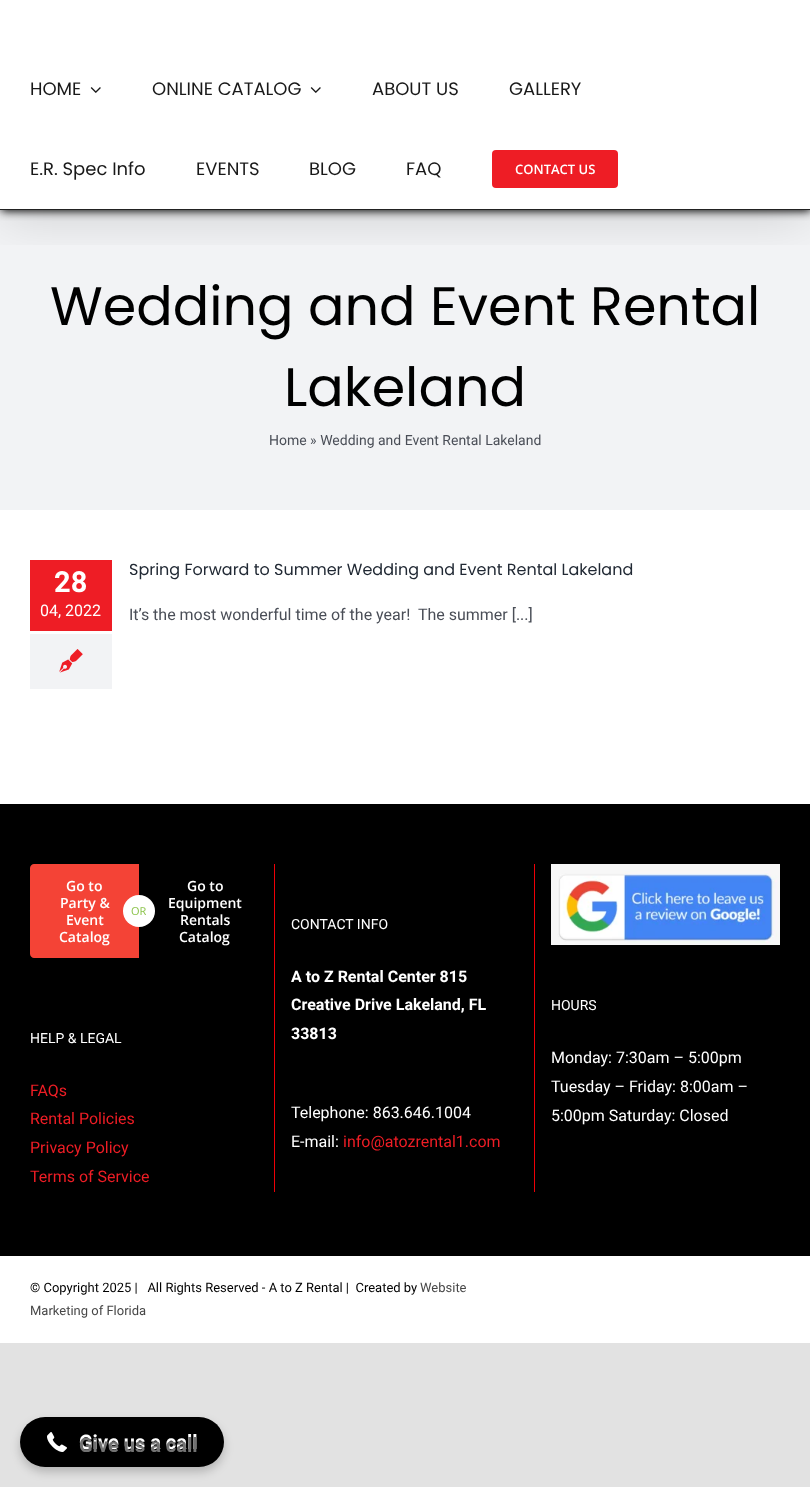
<?xml version="1.0" encoding="UTF-8"?>
<svg xmlns="http://www.w3.org/2000/svg" xmlns:xlink="http://www.w3.org/1999/xlink" width="810" height="1487">
  <defs>
    <clipPath id="clip1"><rect x="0" y="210" width="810" height="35" /></clipPath>
    <clipPath id="clip2"><rect x="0" y="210" width="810" height="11" /></clipPath>
    <clipPath id="clip3"><rect x="79" y="1432" width="119" height="20" /></clipPath>
  </defs>
  <rect width="100%" height="100%" fill="#e2e2e2" />
  <rect width="810" height="1343" fill="#ffffff" />
  <rect y="210" width="810" height="300" fill="#f2f3f5" />
  <g clip-path="url(#clip1)">
    <rect x="2" y="12" width="806" height="206" fill="#000000" fill-opacity="0.14" filter="blur(25px)" />
  </g>
  <g clip-path="url(#clip2)">
    <rect x="1" y="1" width="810" height="210" fill="#000000" filter="blur(5px)" />
  </g>
  <rect y="209" width="810" height="1" fill="#222222" />
  <image x="90" y="87" width="11" height="6" xlink:href="image1.png" />
  <image x="310" y="87" width="11" height="6" xlink:href="image1.png" />
  <rect x="492" y="150" width="126" height="38" rx="4" fill="#ee1d25" />
  <rect x="30" y="560" width="82" height="71" fill="#ee1d25" />
  <rect x="30" y="634" width="82" height="55" fill="#f2f3f5" />
  <image x="59" y="649" width="24" height="24" xlink:href="image2.png" />
  <rect y="804" width="810" height="452" fill="#000000" />
  <rect x="274" y="864" width="1" height="328" fill="#ed0007" />
  <path d="M 34 864 h 105 v 94 h -105 c -2 0 -4 -2 -4 -4 v -86 c 0 -2 2 -4 4 -4 z" fill="#f44336" />
  <circle cx="139" cy="911" r="16" fill="#ffffff" />
  <rect x="534" y="864" width="1" height="328" fill="#ed0007" />
  <image x="551" y="864" width="229" height="81" xlink:href="image3.png" />
  <rect x="20" y="1422" width="204" height="50" rx="25" fill="#000000" fill-opacity="0.2" filter="blur(5px)" />
  <rect x="20" y="1417" width="204" height="50" rx="25" fill="#000000" />
  <image x="47" y="1432" width="20" height="20" xlink:href="image4.png" />
  <text x="30" y="95" style="font-family: Poppins; font-size: 18px; fill: #191919">HOME</text>
  <text x="152" y="95" style="font-family: Poppins; font-size: 18px; fill: #191919">ONLINE CATALOG</text>
  <text x="372" y="95" style="font-family: Poppins; font-size: 18px; fill: #191919">ABOUT US</text>
  <text x="509" y="95" style="font-family: Poppins; font-size: 18px; fill: #191919">GALLERY</text>
  <text x="30" y="175" style="font-family: Poppins; font-size: 18px; fill: #191919">E.R. Spec Info</text>
  <text x="196" y="175" style="font-family: Poppins; font-size: 18px; fill: #191919">EVENTS</text>
  <text x="309" y="175" style="font-family: Poppins; font-size: 18px; fill: #191919">BLOG</text>
  <text x="406" y="175" style="font-family: Poppins; font-size: 18px; fill: #191919">FAQ</text>
  <text x="515" y="174" style="font-family: Open Sans; font-size: 13px; font-weight: 600; fill: #ffffff">CONTACT US</text>
  <text x="50" y="325" style="font-family: Poppins; font-size: 54px; fill: #000000">Wedding and Event Rental</text>
  <text x="284" y="406" style="font-family: Poppins; font-size: 54px; fill: #000000">Lakeland</text>
  <text x="269" y="445" style="font-family: Roboto; font-size: 14px; fill: #4a4e57">Home » Wedding and Event Rental Lakeland</text>
  <text x="54" y="592" style="font-family: Roboto; font-size: 29px; font-weight: bold; fill: #ffffff">28</text>
  <text x="40" y="616" style="font-family: Roboto; font-size: 16px; fill: #ffffff">04, 2022</text>
  <text x="129" y="575" style="font-family: Poppins; font-size: 16px; fill: #212934">Spring Forward to Summer Wedding and Event Rental Lakeland</text>
  <text x="129" y="620" style="font-family: Roboto; font-size: 16px; fill: #4a4e57" xml:space="preserve">It’s the most wonderful time of the year!  The summer [...]</text>
  <text x="66" y="891" style="font-family: Open Sans; font-size: 14px; font-weight: 600; fill: #ffffff">Go to</text>
  <text x="60" y="908" style="font-family: Open Sans; font-size: 14px; font-weight: 600; fill: #ffffff">Party &amp;</text>
  <text x="66" y="925" style="font-family: Open Sans; font-size: 14px; font-weight: 600; fill: #ffffff">Event</text>
  <text x="59" y="942" style="font-family: Open Sans; font-size: 14px; font-weight: 600; fill: #ffffff">Catalog</text>
  <text x="131" y="915" style="font-family: Open Sans; font-size: 11px; fill: #8bc34a">OR</text>
  <text x="187" y="891" style="font-family: Open Sans; font-size: 14px; font-weight: 600; fill: #ffffff">Go to</text>
  <text x="168" y="908" style="font-family: Open Sans; font-size: 14px; font-weight: 600; fill: #ffffff">Equipment</text>
  <text x="180" y="925" style="font-family: Open Sans; font-size: 14px; font-weight: 600; fill: #ffffff">Rentals</text>
  <text x="179" y="942" style="font-family: Open Sans; font-size: 14px; font-weight: 600; fill: #ffffff">Catalog</text>
  <text x="30" y="1043" style="font-family: Roboto; font-size: 14px; fill: #ffffff">HELP &amp; LEGAL</text>
  <text x="30" y="1096" style="font-family: Roboto; font-size: 16px; fill: #ee1d25">FAQs</text>
  <text x="30" y="1124" style="font-family: Roboto; font-size: 16px; fill: #ee1d25">Rental Policies</text>
  <text x="30" y="1153" style="font-family: Roboto; font-size: 16px; fill: #ee1d25">Privacy Policy</text>
  <text x="30" y="1182" style="font-family: Roboto; font-size: 16px; fill: #ee1d25">Terms of Service</text>
  <text x="291" y="929" style="font-family: Roboto; font-size: 14px; fill: #ffffff">CONTACT INFO</text>
  <text x="291" y="982" style="font-family: Roboto; font-size: 16px; font-weight: bold; fill: #ffffff">A to Z Rental Center 815</text>
  <text x="291" y="1010" style="font-family: Roboto; font-size: 16px; font-weight: bold; fill: #ffffff">Creative Drive Lakeland, FL</text>
  <text x="291" y="1039" style="font-family: Roboto; font-size: 16px; font-weight: bold; fill: #ffffff">33813</text>
  <text x="291" y="1118" style="font-family: Roboto; font-size: 16px; fill: #ffffff">Telephone: 863.646.1004</text>
  <text x="291" y="1147" style="font-family: Roboto; font-size: 16px; fill: #ffffff">E-mail:</text>
  <text x="343" y="1147" style="font-family: Roboto; font-size: 16px; fill: #ee1d25">info@atozrental1.com</text>
  <text x="551" y="1010" style="font-family: Roboto; font-size: 14px; fill: #ffffff">HOURS</text>
  <text x="551" y="1063" style="font-family: Roboto; font-size: 16px; fill: #ffffff">Monday: 7:30am – 5:00pm</text>
  <text x="551" y="1092" style="font-family: Roboto; font-size: 16px; fill: #ffffff">Tuesday – Friday: 8:00am –</text>
  <text x="551" y="1121" style="font-family: Roboto; font-size: 16px; fill: #ffffff">5:00pm Saturday: Closed</text>
  <text x="30" y="1292" style="font-family: Roboto; font-size: 13px; fill: #000000" xml:space="preserve">© Copyright 2025 |   All Rights Reserved - A to Z Rental |  Created by</text>
  <text x="420" y="1292" style="font-family: Roboto; font-size: 13px; fill: #474747">Website</text>
  <text x="30" y="1315" style="font-family: Roboto; font-size: 13px; fill: #474747">Marketing of Florida</text>
  <text x="79" y="1449" style="font-family: Roboto; font-size: 20px; font-weight: bold; fill: #ffffff">Give us a call</text>
  <g clip-path="url(#clip3)">
    <text x="79" y="1452" style="font-family: Roboto; font-size: 20px; font-weight: bold; fill: #727272">Give us a call</text>
  </g>
</svg>
